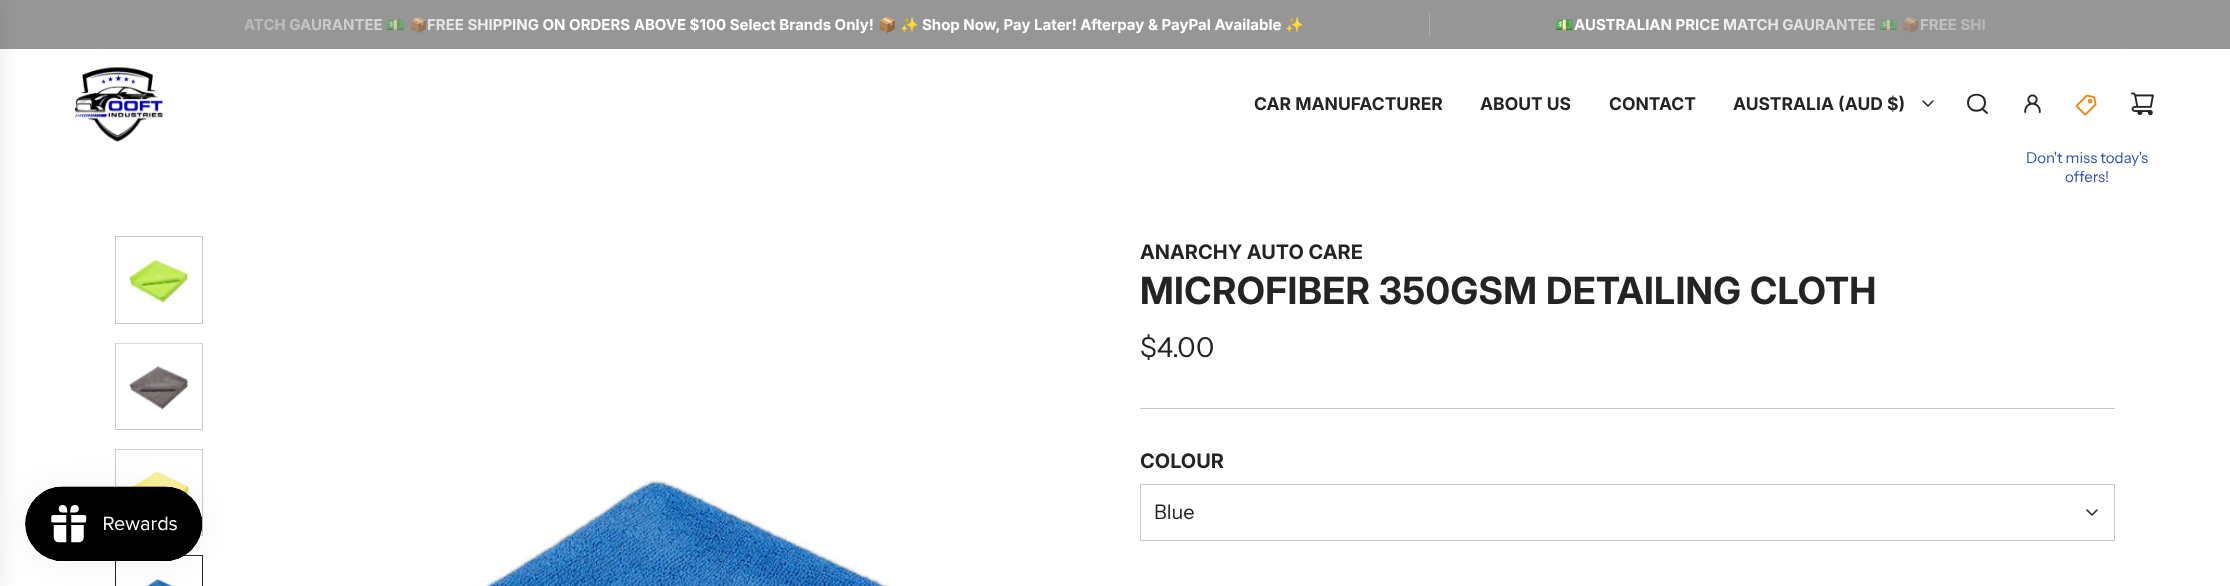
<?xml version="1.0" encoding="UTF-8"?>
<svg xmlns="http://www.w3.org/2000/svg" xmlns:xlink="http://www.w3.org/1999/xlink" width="2230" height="586">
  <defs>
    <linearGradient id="g1" gradientUnits="userSpaceOnUse" x1="0" y1="24" x2="669" y2="24"><stop offset="0.15" stop-color="#969696" /><stop offset="0.85" stop-color="#969696" stop-opacity="0" /></linearGradient>
    <linearGradient id="g2" gradientUnits="userSpaceOnUse" x1="2230" y1="24" x2="1561" y2="24"><stop offset="0.15" stop-color="#969696" /><stop offset="0.85" stop-color="#969696" stop-opacity="0" /></linearGradient>
  </defs>
  <rect width="100%" height="100%" fill="#ffffff" />
  <rect x="115.5" y="449.5" width="87" height="86" fill="none" stroke="#c8c8c8" />
  <image x="116" y="449" width="85" height="65" xlink:href="image8.png" />
  <rect x="115.5" y="555.5" width="87" height="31" fill="none" stroke="#242424" />
  <image x="116" y="555" width="85" height="31" xlink:href="image9.png" />
  <rect x="25" y="486" width="178" height="75" rx="37.5" fill="#000000" fill-opacity="0.05" filter="blur(15.5px)" />
  <rect x="103" width="2024" height="49" fill="#969696" />
  <rect x="1429" y="13" width="1" height="23" fill="#b0b0b0" />
  <image x="75" y="67" width="88" height="75" xlink:href="image2.png" />
  <path d="M 1923 101 l 5 5 l 5 -5" fill="none" stroke="#262428" stroke-width="1.5" stroke-linecap="round" stroke-linejoin="round" />
  <path d="M 1982.5 109 l 4.5 4 m -19 -10.5 c 0 11 17 11 17 0 c 0 -10.5 -17 -10.5 -17 0 z" fill="none" stroke="#262428" stroke-width="1.9" stroke-linecap="round" stroke-linejoin="round" />
  <image x="2024" y="94" width="17" height="19" xlink:href="image3.png" />
  <image x="2131" y="92" width="23" height="24" xlink:href="image4.png" />
  <image x="2075" y="94" width="22" height="22" xlink:href="image5.png" />
  <rect x="115.5" y="236.5" width="87" height="87" fill="none" stroke="#c8c8c8" />
  <image x="129" y="259" width="59" height="44" xlink:href="image6.png" />
  <rect x="115.5" y="343.5" width="87" height="86" fill="none" stroke="#c8c8c8" />
  <image x="116" y="343" width="86" height="67" xlink:href="image7.png" />
  <image x="475" y="479" width="415" height="107" xlink:href="image10.png" />
  <rect x="1140" y="408" width="975" height="1" fill="#c8c8c8" />
  <rect x="1140.5" y="484.5" width="974" height="56" fill="none" stroke="#c8c8c8" />
  <path d="M 2087 510 l 5 5 l 5 -5" fill="none" stroke="#242424" stroke-width="1.5" stroke-linecap="round" stroke-linejoin="round" />
  <text x="244" y="30" style="font-family: Inter; font-size: 15px; font-weight: bold; fill: #ffffff">ATCH GAURANTEE</text>
  <text x="386" y="30" style="font-family: Noto Color Emoji; font-size: 15px; fill: #ffffff">💵</text>
  <text x="409" y="30" style="font-family: Noto Color Emoji; font-size: 15px; fill: #ffffff">📦</text>
  <text x="427" y="30" style="font-family: Inter; font-size: 15px; font-weight: bold; fill: #ffffff">FREE SHIPPING ON ORDERS ABOVE $100 Select Brands Only!</text>
  <rect width="559" height="49" fill="url(#g1)" />
  <text x="878" y="30" style="font-family: Noto Color Emoji; font-size: 15px; fill: #ffffff">📦</text>
  <text x="900" y="30" style="font-family: Noto Color Emoji; font-size: 15px; fill: #ffffff">✨</text>
  <text x="922" y="30" style="font-family: Inter; font-size: 15px; font-weight: bold; fill: #ffffff">Shop Now, Pay Later! Afterpay &amp; PayPal Available</text>
  <text x="1285" y="30" style="font-family: Noto Color Emoji; font-size: 15px; fill: #ffffff">✨</text>
  <text x="1555" y="30" style="font-family: Noto Color Emoji; font-size: 15px; fill: #ffffff">💵</text>
  <text x="1574" y="30" style="font-family: Inter; font-size: 15px; font-weight: bold; fill: #ffffff">AUSTRALIAN PRICE MATCH GAURANTEE</text>
  <text x="1879" y="30" style="font-family: Noto Color Emoji; font-size: 15px; fill: #ffffff">💵</text>
  <text x="1901" y="30" style="font-family: Noto Color Emoji; font-size: 15px; fill: #ffffff">📦</text>
  <text x="1920" y="30" style="font-family: Inter; font-size: 15px; font-weight: bold; fill: #ffffff">FREE SHI</text>
  <rect x="1677" width="553" height="49" fill="url(#g2)" />
  <rect x="-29" y="6" width="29" height="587" fill="#000000" fill-opacity="0.1" filter="blur(9.5px)" />
  <image x="25" y="486" width="178" height="75" xlink:href="image1.png" />
  <text x="1254" y="110" style="font-family: Inter; font-size: 17.5px; font-weight: bold; fill: #242424">CAR MANUFACTURER</text>
  <text x="1480" y="110" style="font-family: Inter; font-size: 17.5px; font-weight: bold; fill: #242424">ABOUT US</text>
  <text x="1609" y="110" style="font-family: Inter; font-size: 17.5px; font-weight: bold; fill: #242424">CONTACT</text>
  <text x="1733" y="110" style="font-family: Inter; font-size: 17.5px; font-weight: bold; fill: #242424">AUSTRALIA (AUD $)</text>
  <text x="2026" y="163" style="font-family: Instrument Sans; font-size: 15px; fill: #334fb4">Don't miss today's</text>
  <text x="2065" y="182" style="font-family: Instrument Sans; font-size: 15px; fill: #334fb4">offers!</text>
  <text x="1140" y="259" style="font-family: 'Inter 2'; font-size: 20px; font-weight: bold; fill: #242424">ANARCHY AUTO CARE</text>
  <text x="1140" y="304" style="font-family: 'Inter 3'; font-size: 37.5px; font-weight: bold; letter-spacing: 0.4px; fill: #242424">MICROFIBER 350GSM DETAILING CLOTH</text>
  <text x="1140" y="357" style="font-family: Instrument Sans; font-size: 27.5px; fill: #242424">$4.00</text>
  <text x="1140" y="468" style="font-family: 'Inter 2'; font-size: 20px; font-weight: bold; fill: #242424">COLOUR</text>
  <text x="1154" y="519" style="font-family: Instrument Sans; font-size: 20px; fill: #242424">Blue</text>
</svg>
